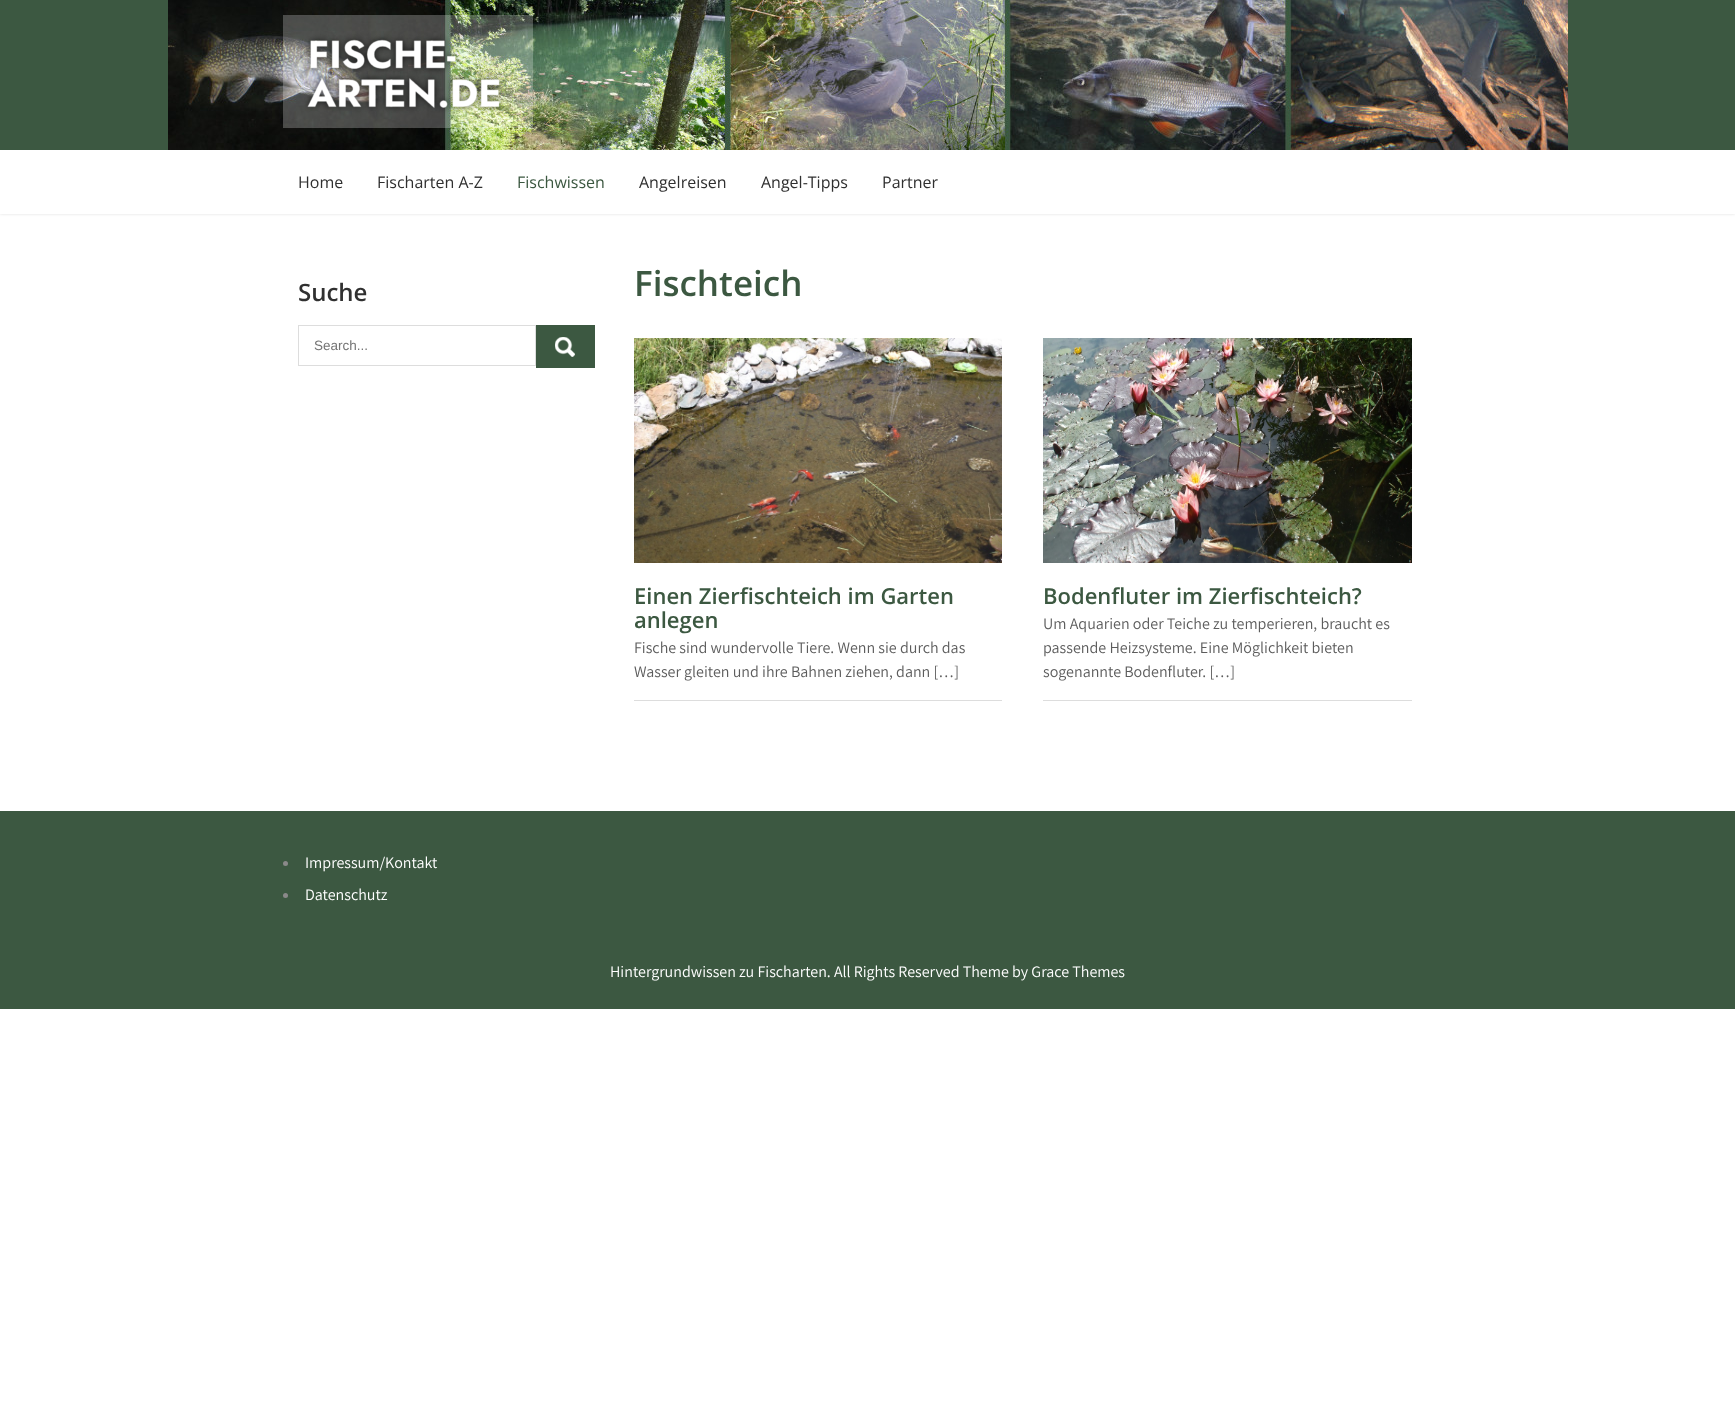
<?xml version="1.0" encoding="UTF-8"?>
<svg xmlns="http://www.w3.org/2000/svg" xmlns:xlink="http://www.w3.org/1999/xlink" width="1735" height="1401">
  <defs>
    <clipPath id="clip1"><rect x="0" y="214" width="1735" height="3" /></clipPath>
  </defs>
  <rect width="100%" height="100%" fill="#ffffff" />
  <g clip-path="url(#clip1)">
    <rect y="150" width="1735" height="64" fill="#dddddd" filter="blur(1.5px)" />
  </g>
  <rect width="1735" height="150" fill="#3c5841" />
  <image x="168" y="0" width="1400" height="150" xlink:href="image1.png" />
  <image x="283" y="15" width="250" height="113" xlink:href="image2.png" />
  <rect x="298.5" y="325.5" width="237" height="40" fill="none" stroke="#dddddd" />
  <rect x="536" y="325" width="59" height="43" fill="#3c5841" />
  <image x="555" y="337" width="20" height="20" xlink:href="image3.png" />
  <rect x="634" y="700" width="368" height="1" fill="#dddddd" />
  <image x="634" y="338" width="368" height="225" xlink:href="image4.png" />
  <rect x="1043" y="700" width="369" height="1" fill="#dddddd" />
  <image x="1043" y="338" width="369" height="225" xlink:href="image5.png" />
  <rect y="811" width="1735" height="198" fill="#3c5841" />
  <circle cx="285.5" cy="863.5" r="2.5" fill="#8a8989" />
  <circle cx="285.5" cy="895.5" r="2.5" fill="#8a8989" />
  <text x="298" y="188" style="font-family: Open Sans; font-size: 16px; fill: #303030">Home</text>
  <text x="377" y="188" style="font-family: Open Sans; font-size: 16px; fill: #303030">Fischarten A-Z</text>
  <text x="517" y="188" style="font-family: Open Sans; font-size: 16px; fill: #3c5841">Fischwissen</text>
  <text x="639" y="188" style="font-family: Open Sans; font-size: 16px; fill: #303030">Angelreisen</text>
  <text x="761" y="188" style="font-family: Open Sans; font-size: 16px; fill: #303030">Angel-Tipps</text>
  <text x="882" y="188" style="font-family: Open Sans; font-size: 16px; fill: #303030">Partner</text>
  <text x="298" y="301" style="font-family: Open Sans; font-size: 24px; font-weight: 600; fill: #303030">Suche</text>
  <text x="314" y="350" style="font-family: Liberation Sans; font-size: 13.5px; fill: #757575">Search...</text>
  <text x="634" y="296" style="font-family: Open Sans; font-size: 35px; font-weight: 600; fill: #3c5841">Fischteich</text>
  <text x="634" y="604" style="font-family: Open Sans; font-size: 22px; font-weight: 600; fill: #3c5841">Einen Zierfischteich im Garten</text>
  <text x="634" y="628" style="font-family: Open Sans; font-size: 22px; font-weight: 600; fill: #3c5841">anlegen</text>
  <text x="634" y="653" style="font-family: Assistant; font-size: 16px; font-weight: 200; fill: #5c5c5c">Fische sind wundervolle Tiere. Wenn sie durch das</text>
  <text x="634" y="677" style="font-family: Assistant; font-size: 16px; font-weight: 200; fill: #5c5c5c">Wasser gleiten und ihre Bahnen ziehen, dann […]</text>
  <text x="1043" y="604" style="font-family: Open Sans; font-size: 22px; font-weight: 600; fill: #3c5841">Bodenfluter im Zierfischteich?</text>
  <text x="1043" y="629" style="font-family: Assistant; font-size: 16px; font-weight: 200; fill: #5c5c5c">Um Aquarien oder Teiche zu temperieren, braucht es</text>
  <text x="1043" y="653" style="font-family: Assistant; font-size: 16px; font-weight: 200; fill: #5c5c5c">passende Heizsysteme. Eine Möglichkeit bieten</text>
  <text x="1043" y="677" style="font-family: Assistant; font-size: 16px; font-weight: 200; fill: #5c5c5c">sogenannte Bodenfluter. […]</text>
  <text x="305" y="868" style="font-family: Assistant; font-size: 16px; font-weight: 200; fill: #ffffff">Impressum/Kontakt</text>
  <text x="305" y="900" style="font-family: Assistant; font-size: 16px; font-weight: 200; fill: #ffffff">Datenschutz</text>
  <text x="610" y="977" style="font-family: Assistant; font-size: 16px; font-weight: 200; fill: #ffffff">Hintergrundwissen zu Fischarten. All Rights Reserved Theme by Grace Themes</text>
</svg>
